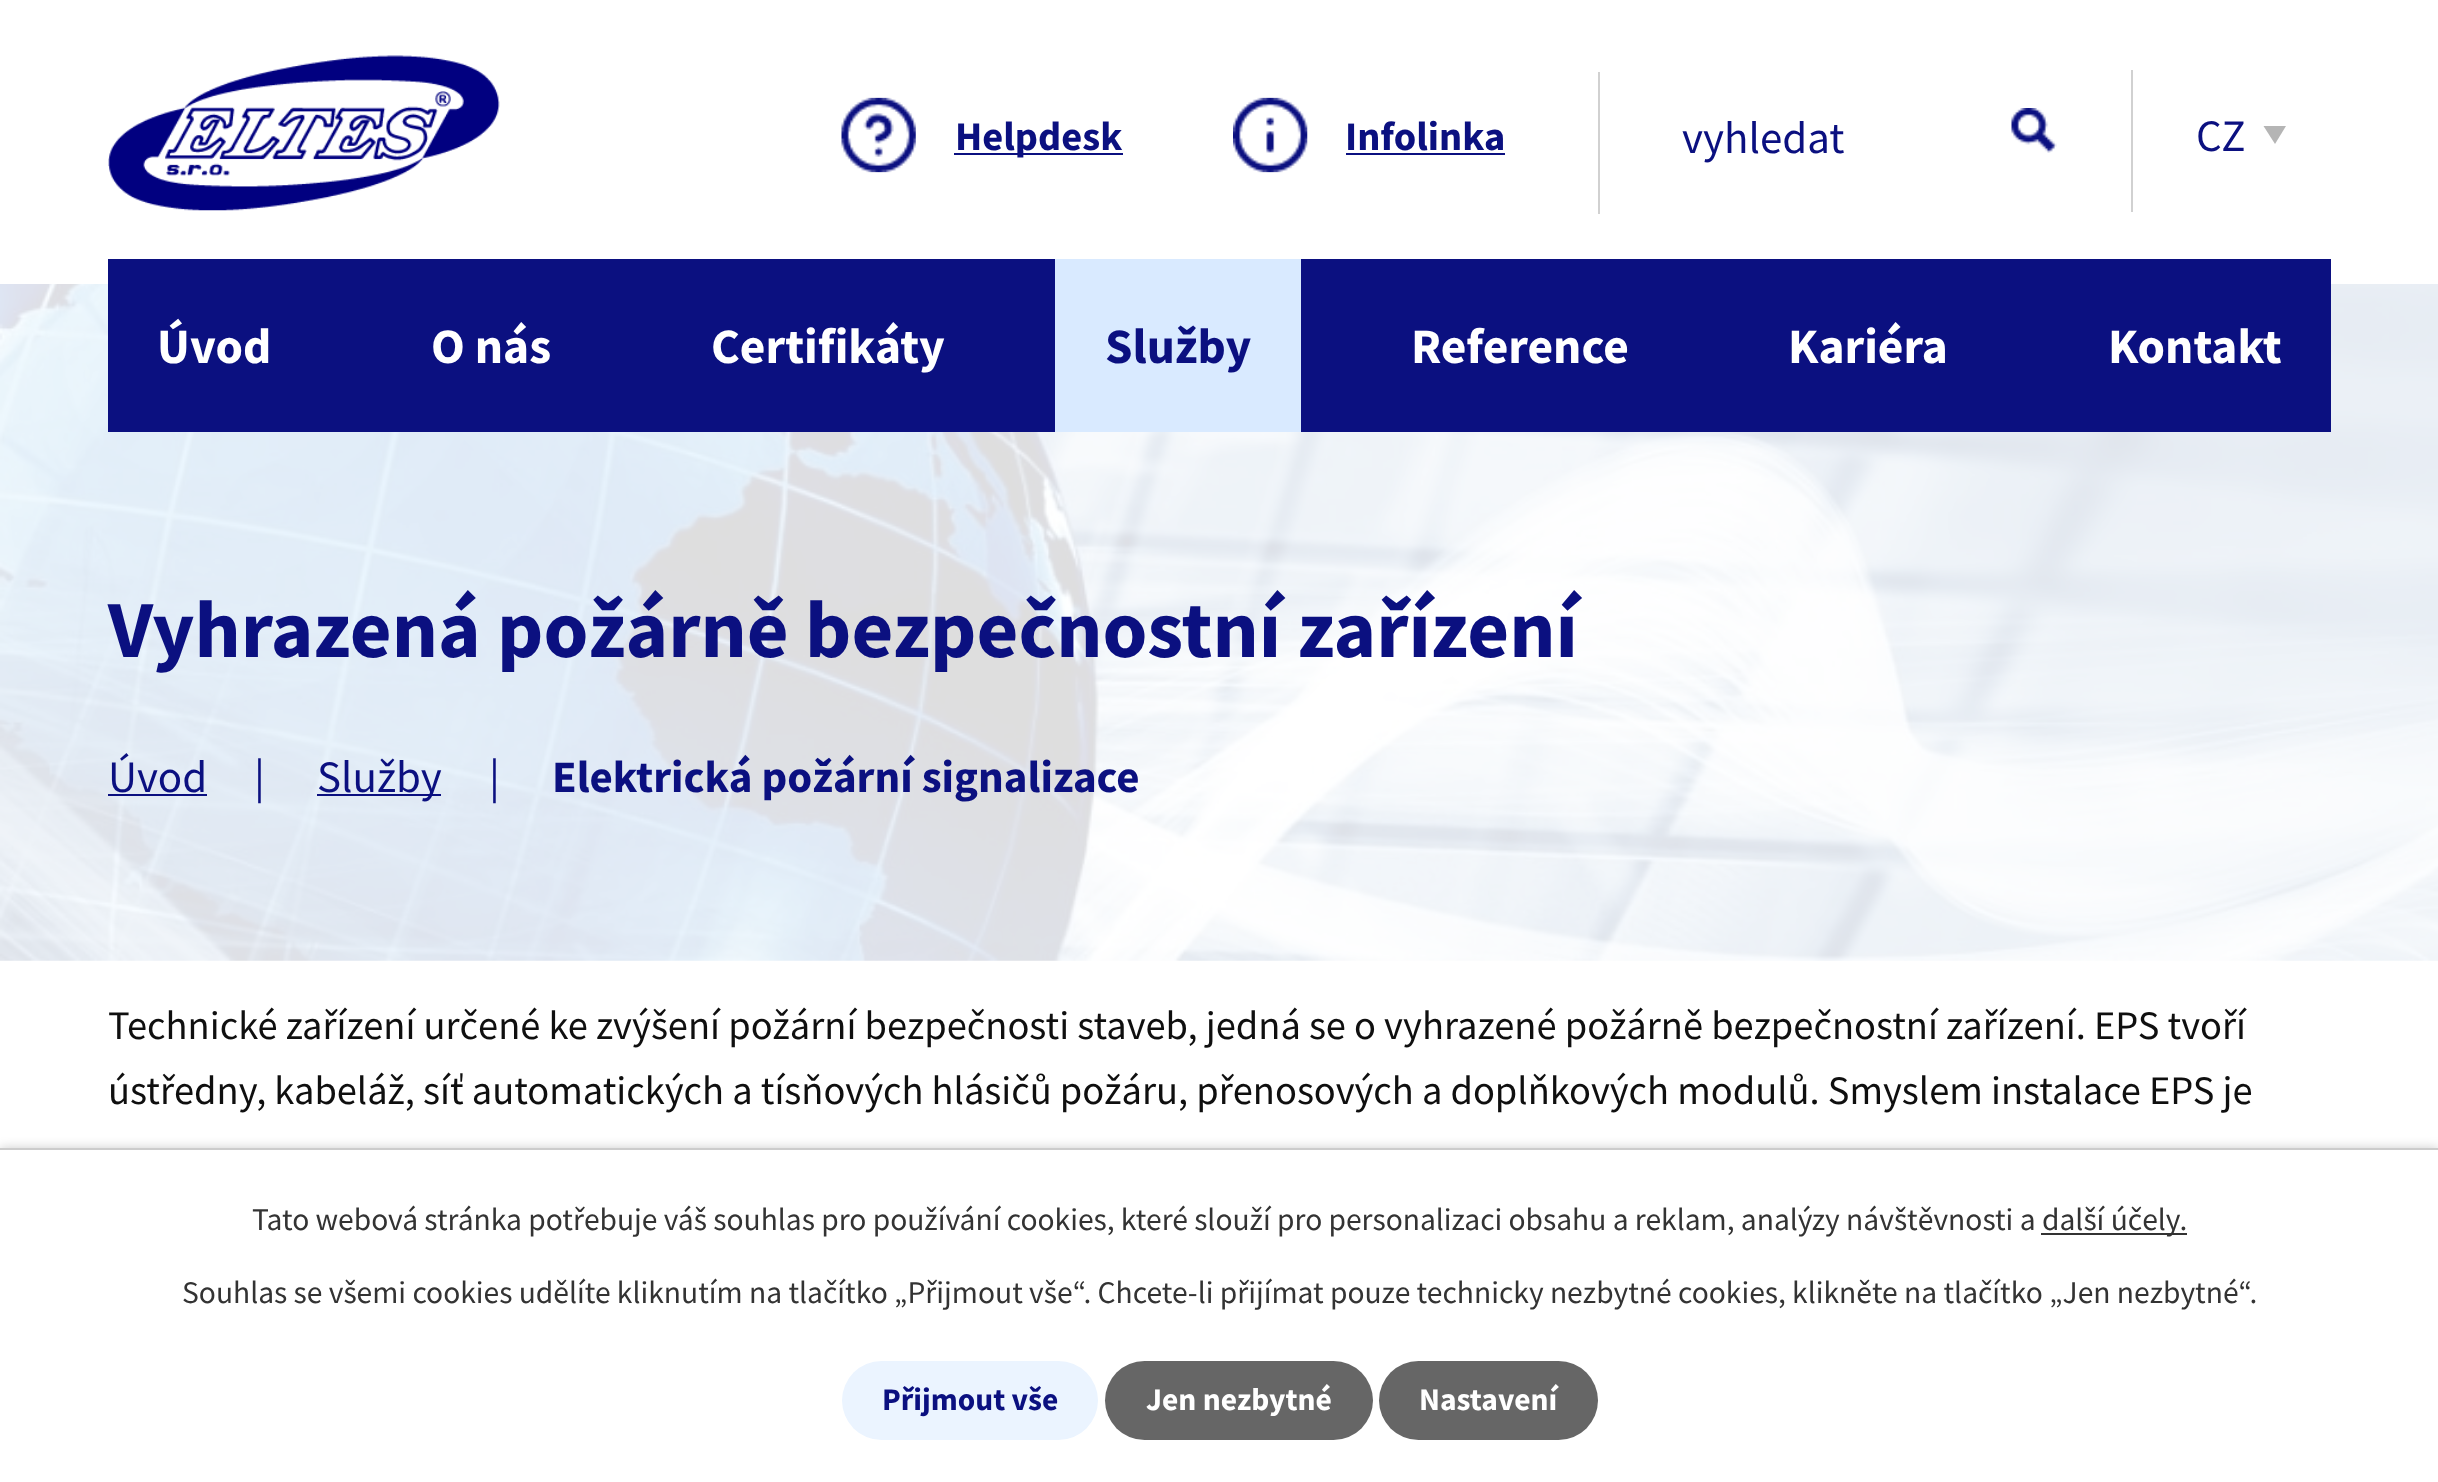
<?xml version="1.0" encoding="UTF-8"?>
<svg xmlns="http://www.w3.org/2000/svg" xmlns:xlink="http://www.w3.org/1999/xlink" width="2438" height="1482">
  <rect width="100%" height="100%" fill="#ffffff" />
  <image x="108" y="55" width="392" height="156" xlink:href="image1.png" />
  <image x="841" y="97" width="75" height="76" xlink:href="image2.png" />
  <rect x="954" y="153" width="169" height="2" fill="#0b1080" />
  <image x="1233" y="97" width="75" height="76" xlink:href="image3.png" />
  <rect x="1346" y="153" width="159" height="2" fill="#0b1080" />
  <rect x="1598" y="72" width="2" height="142" fill="#d1d1d1" />
  <image x="2011" y="108" width="46" height="45" xlink:href="image4.png" />
  <rect x="2131" y="70" width="2" height="142" fill="#d1d1d1" />
  <path d="M 2263.5 126 h 22.5 l -11 18 z" fill="#b5b5b5" />
  <image x="0" y="284" width="2438" height="677" xlink:href="image5.png" />
  <rect x="108" y="259" width="2223" height="173" fill="#0b1080" />
  <rect x="1055" y="259" width="246" height="173" fill="#d9eaff" />
  <rect x="108" y="794" width="99" height="2" fill="#0b1080" />
  <rect x="317" y="794" width="124" height="2" fill="#0b1080" />
  <rect y="1148" width="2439" height="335" fill="#000000" fill-opacity="0.2" filter="blur(5.5px)" />
  <rect y="1150" width="2438" height="332" fill="#ffffff" />
  <rect y="1148" width="2438" height="2" fill="#cccccc" />
  <rect x="2041" y="1233" width="146" height="2" fill="#333333" />
  <rect x="842" y="1361" width="256" height="79" rx="39.5" fill="#ebf4ff" />
  <rect x="1105" y="1361" width="268" height="79" rx="39.5" fill="#666666" />
  <rect x="1379" y="1361" width="219" height="79" rx="39.5" fill="#666666" />
  <text x="955" y="150" style="font-family: Source Sans Pro; font-size: 40.5px; font-weight: bold; fill: #0b1080">Helpdesk</text>
  <text x="1345" y="150" style="font-family: Source Sans Pro; font-size: 40.5px; font-weight: bold; fill: #0b1080">Infolinka</text>
  <text x="1682" y="153" style="font-family: Source Sans Pro; font-size: 45px; fill: #0b1080">vyhledat</text>
  <text x="2196" y="151" style="font-family: Source Sans Pro; font-size: 45px; fill: #0b1080">CZ</text>
  <text x="157" y="363" style="font-family: Source Sans Pro; font-size: 49.5px; font-weight: bold; fill: #ffffff">Úvod</text>
  <text x="431" y="363" style="font-family: Source Sans Pro; font-size: 49.5px; font-weight: bold; fill: #ffffff">O nás</text>
  <text x="711" y="363" style="font-family: Source Sans Pro; font-size: 49.5px; font-weight: bold; fill: #ffffff">Certifikáty</text>
  <text x="1105" y="363" style="font-family: Source Sans Pro; font-size: 49.5px; font-weight: bold; fill: #0b1080">Služby</text>
  <text x="1411" y="363" style="font-family: Source Sans Pro; font-size: 49.5px; font-weight: bold; fill: #ffffff">Reference</text>
  <text x="1788" y="363" style="font-family: Source Sans Pro; font-size: 49.5px; font-weight: bold; fill: #ffffff">Kariéra</text>
  <text x="2108" y="363" style="font-family: Source Sans Pro; font-size: 49.5px; font-weight: bold; fill: #ffffff">Kontakt</text>
  <text x="108" y="657" style="font-family: Source Sans Pro; font-size: 81px; font-weight: bold; fill: #0b1080">Vyhrazená požárně bezpečnostní zařízení</text>
  <text x="108" y="792" style="font-family: Source Sans Pro; font-size: 45px; fill: #0b1080">Úvod</text>
  <text x="254" y="792" style="font-family: Source Sans Pro; font-size: 45px; fill: #0b1080">|</text>
  <text x="317" y="792" style="font-family: Source Sans Pro; font-size: 45px; fill: #0b1080">Služby</text>
  <text x="489" y="792" style="font-family: Source Sans Pro; font-size: 45px; fill: #0b1080">|</text>
  <text x="552" y="792" style="font-family: Source Sans Pro; font-size: 45px; font-weight: bold; fill: #0b1080">Elektrická požární signalizace</text>
  <text x="108" y="1039" style="font-family: Source Sans Pro; font-size: 40.5px; fill: #0f0f0f">Technické zařízení určené ke zvýšení požární bezpečnosti staveb, jedná se o vyhrazené požárně bezpečnostní zařízení. EPS tvoří</text>
  <text x="108" y="1104" style="font-family: Source Sans Pro; font-size: 40.5px; fill: #0f0f0f">ústředny, kabeláž, síť automatických a tísňových hlásičů požáru, přenosových a doplňkových modulů. Smyslem instalace EPS je</text>
  <text x="252" y="1230" style="font-family: Source Sans Pro; font-size: 31.5px; fill: #333333">Tato webová stránka potřebuje váš souhlas pro používání cookies, které slouží pro personalizaci obsahu a reklam, analýzy návštěvnosti a</text>
  <text x="2042" y="1230" style="font-family: Source Sans Pro; font-size: 31.5px; fill: #333333">další účely.</text>
  <text x="182" y="1303" style="font-family: Source Sans Pro; font-size: 31.5px; fill: #333333">Souhlas se všemi cookies udělíte kliknutím na tlačítko „Přijmout vše“. Chcete-li přijímat pouze technicky nezbytné cookies, klikněte na tlačítko „Jen nezbytné“.</text>
  <text x="882" y="1410" style="font-family: Source Sans Pro; font-size: 31.5px; font-weight: bold; fill: #0b1080">Přijmout vše</text>
  <text x="1146" y="1410" style="font-family: Source Sans Pro; font-size: 31.5px; font-weight: bold; fill: #ffffff">Jen nezbytné</text>
  <text x="1419" y="1410" style="font-family: Source Sans Pro; font-size: 31.5px; font-weight: bold; fill: #ffffff">Nastavení</text>
</svg>
